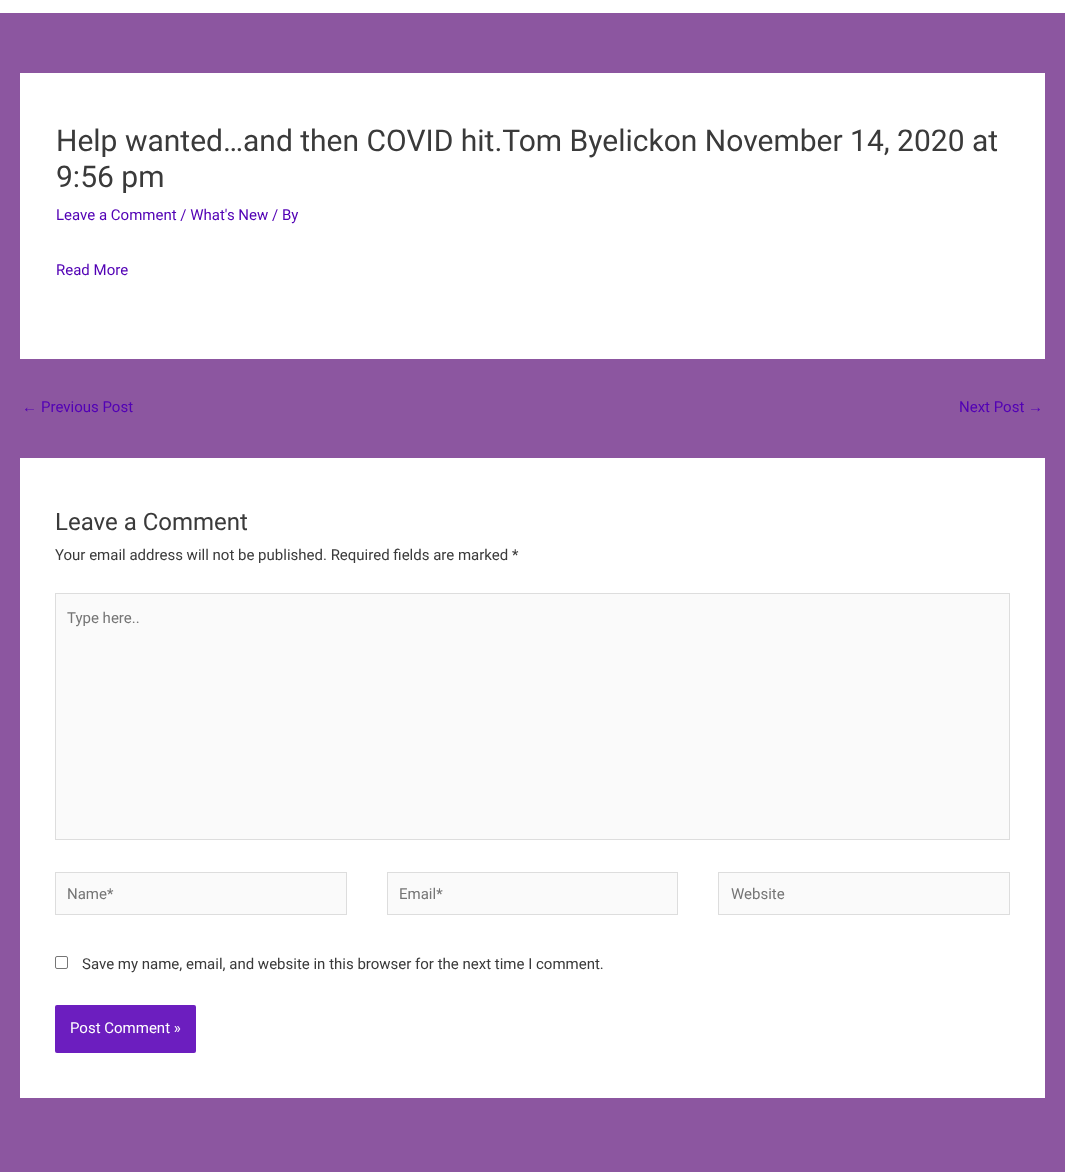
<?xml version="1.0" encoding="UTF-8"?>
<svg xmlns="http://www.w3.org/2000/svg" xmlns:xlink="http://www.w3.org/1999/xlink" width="1065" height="1172">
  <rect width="100%" height="100%" fill="#8c56a0" />
  <rect width="1065" height="13" fill="#ffffff" />
  <rect x="20" y="73" width="1025" height="286" fill="#ffffff" />
  <rect x="20" y="458" width="1025" height="640" fill="#ffffff" />
  <rect x="55.5" y="593.5" width="954" height="246" fill="#fafafa" stroke="#dddddd" />
  <rect x="55.5" y="872.5" width="291" height="42" fill="#fafafa" stroke="#dddddd" />
  <rect x="387.5" y="872.5" width="290" height="42" fill="#fafafa" stroke="#dddddd" />
  <rect x="718.5" y="872.5" width="291" height="42" fill="#fafafa" stroke="#dddddd" />
  <rect x="55.5" y="956.5" width="12" height="12" rx="1.5" fill="none" stroke="#767676" />
  <rect x="55" y="1005" width="141" height="48" rx="2" fill="#6c1ebf" />
  <text x="56" y="151" style="font-family: Roboto; font-size: 30px; fill: #3a3a3a">Help wanted…and then COVID hit.Tom Byelickon November 14, 2020 at</text>
  <text x="56" y="187" style="font-family: Roboto; font-size: 30px; fill: #3a3a3a">9:56 pm</text>
  <text x="56" y="220" style="font-family: Roboto; font-size: 15px; fill: #5201b5">Leave a Comment / What's New / By</text>
  <text x="56" y="275" style="font-family: Roboto; font-size: 15px; fill: #5201b5">Read More</text>
  <text x="22" y="412" style="font-family: Liberation Sans; font-size: 15px; fill: #5201b5">←</text>
  <text x="41" y="412" style="font-family: Roboto; font-size: 15px; fill: #5201b5">Previous Post</text>
  <text x="959" y="412" style="font-family: Roboto; font-size: 15px; fill: #5201b5">Next Post</text>
  <text x="1028" y="412" style="font-family: Liberation Sans; font-size: 15px; fill: #5201b5">→</text>
  <text x="55" y="530" style="font-family: Roboto; font-size: 24px; fill: #3a3a3a">Leave a Comment</text>
  <text x="55" y="560" style="font-family: Roboto; font-size: 15px; fill: #3a3a3a">Your email address will not be published. Required fields are marked *</text>
  <text x="67" y="623" style="font-family: Roboto; font-size: 15px; fill: #757575">Type here..</text>
  <text x="67" y="899" style="font-family: Roboto; font-size: 15px; fill: #757575">Name*</text>
  <text x="399" y="899" style="font-family: Roboto; font-size: 15px; fill: #757575">Email*</text>
  <text x="731" y="899" style="font-family: Roboto; font-size: 15px; fill: #757575">Website</text>
  <text x="82" y="969" style="font-family: Roboto; font-size: 15px; fill: #3a3a3a">Save my name, email, and website in this browser for the next time I comment.</text>
  <text x="70" y="1033" style="font-family: Roboto; font-size: 15px; fill: #ffffff">Post Comment »</text>
</svg>
